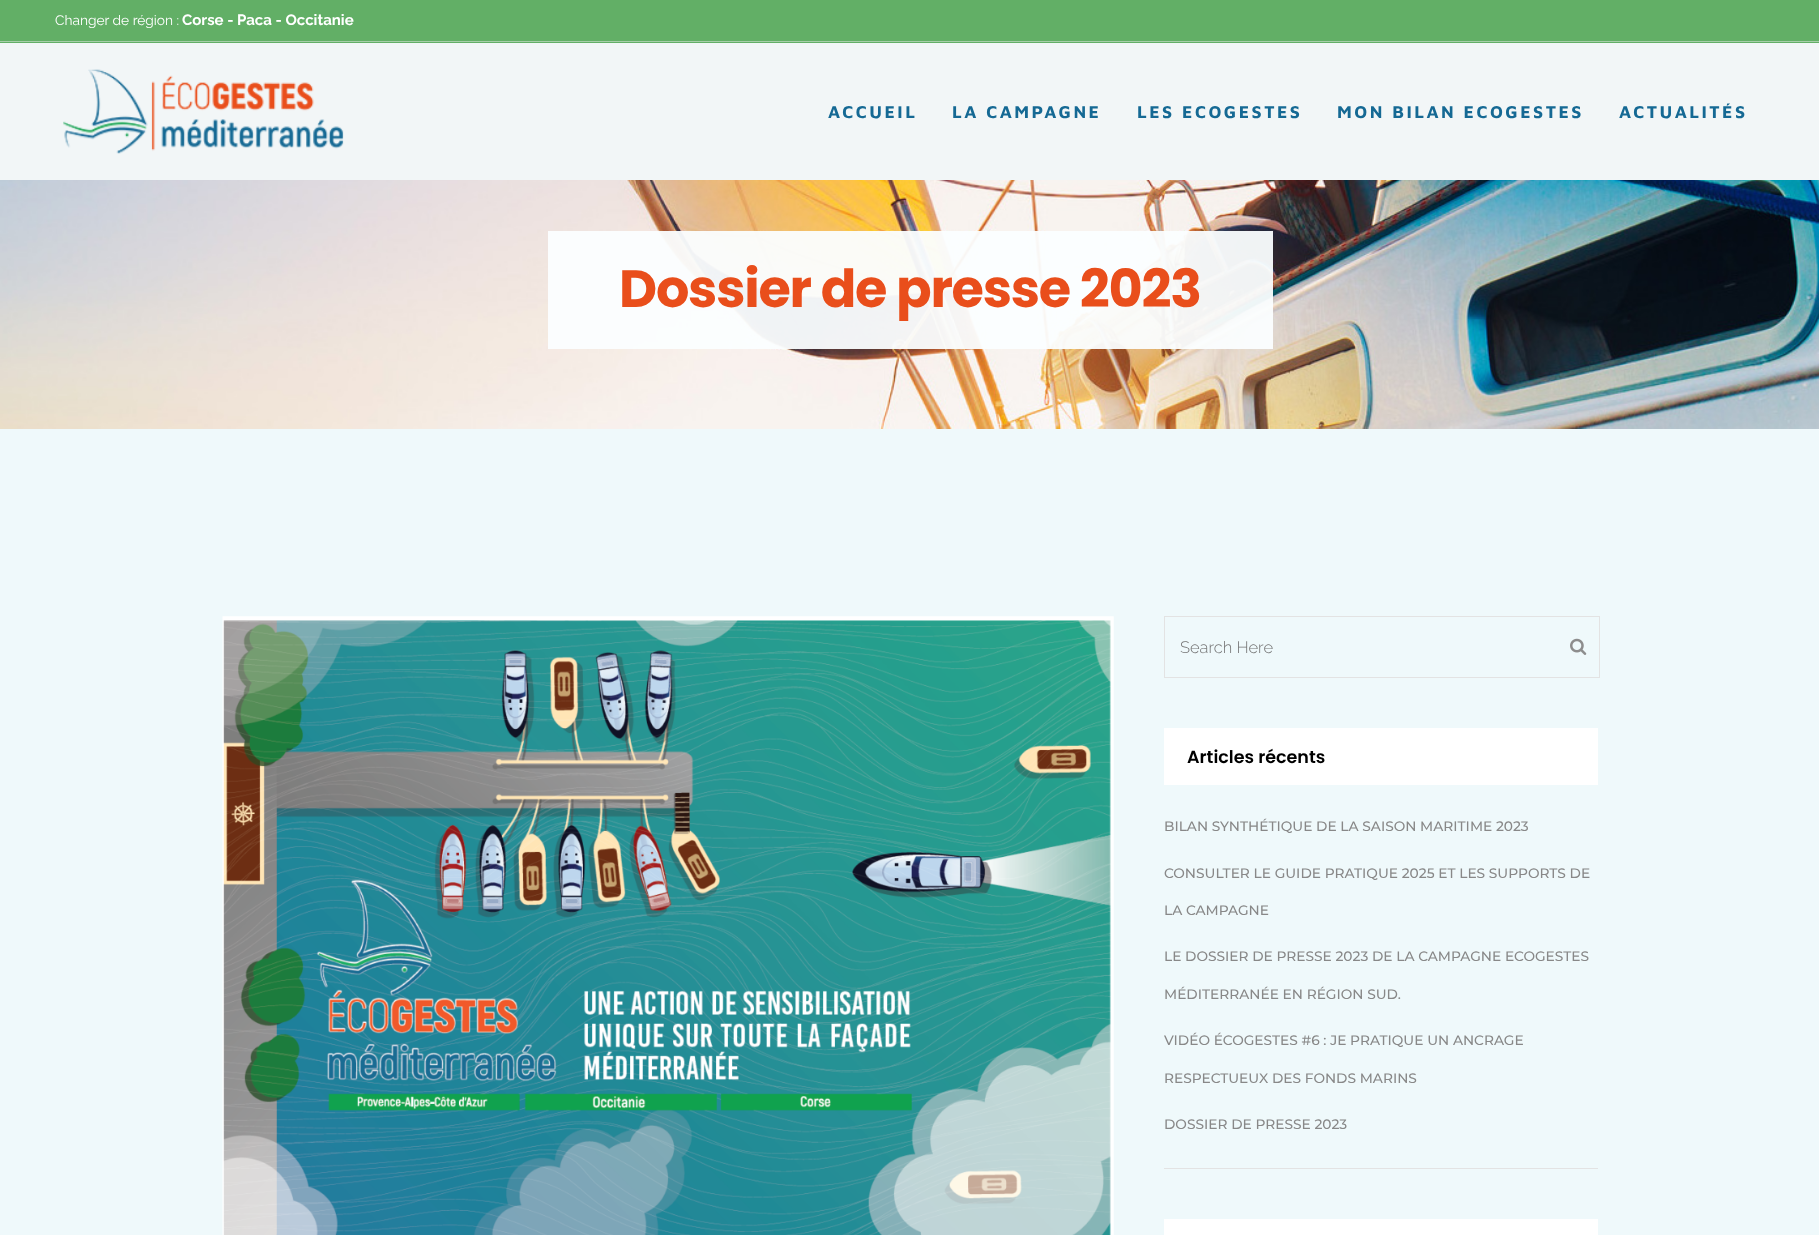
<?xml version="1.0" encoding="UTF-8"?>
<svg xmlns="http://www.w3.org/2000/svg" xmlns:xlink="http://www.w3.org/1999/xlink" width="1819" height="1235">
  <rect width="100%" height="100%" fill="#eff9fb" />
  <rect width="1819" height="43" fill="#62af66" />
  <rect y="41" width="1819" height="1" fill="#a7cea9" />
  <rect y="43" width="1819" height="137" fill="#f2f6f7" />
  <image x="63" y="69" width="281" height="85" xlink:href="image1.png" />
  <image x="0" y="180" width="1819" height="249" xlink:href="image2.png" />
  <rect x="548" y="231" width="725" height="118" fill="#fbfeff" fill-opacity="0.95" />
  <image x="222" y="616" width="892" height="619" xlink:href="image3.png" />
  <rect x="1164.5" y="616.5" width="435" height="61" fill="none" stroke="#e3e3e3" />
  <image x="1570" y="638" width="17" height="17" xlink:href="image4.png" />
  <rect x="1164" y="1168" width="434" height="1" fill="#e3e3e3" />
  <rect x="1164" y="728" width="434" height="57" fill="#ffffff" />
  <rect x="1164" y="1219" width="434" height="16" fill="#ffffff" />
  <text x="55" y="25" style="font-family: Raleway; font-size: 13.75px; fill: #ffffff">Changer de région :</text>
  <text x="182" y="25" style="font-family: Raleway; font-size: 15px; font-weight: bold; fill: #ffffff">Corse - Paca - Occitanie</text>
  <text x="828" y="118" style="font-family: Maven Pro; font-size: 17.5px; font-weight: bold; letter-spacing: 2.5px; fill: #156994">ACCUEIL</text>
  <text x="952" y="118" style="font-family: Maven Pro; font-size: 17.5px; font-weight: bold; letter-spacing: 2.5px; fill: #156994">LA CAMPAGNE</text>
  <text x="1137" y="118" style="font-family: Maven Pro; font-size: 17.5px; font-weight: bold; letter-spacing: 2.5px; fill: #156994">LES ECOGESTES</text>
  <text x="1337" y="118" style="font-family: Maven Pro; font-size: 17.5px; font-weight: bold; letter-spacing: 2.5px; fill: #156994">MON BILAN ECOGESTES</text>
  <text x="1619" y="118" style="font-family: Maven Pro; font-size: 17.5px; font-weight: bold; letter-spacing: 2.5px; fill: #156994">ACTUALITÉS</text>
  <text x="619" y="307" style="font-family: Poppins; font-size: 52.5px; font-weight: bold; letter-spacing: -1.25px; fill: #e94e1b">Dossier de presse 2023</text>
  <text x="1180" y="653" style="font-family: Raleway; font-size: 16.5px; font-weight: 300; fill: #757575">Search Here</text>
  <text x="1187" y="763" style="font-family: Poppins; font-size: 17.5px; font-weight: 600; fill: #000000">Articles récents</text>
  <text x="1164" y="831" style="font-family: Montserrat; font-size: 13.75px; font-weight: 500; fill: #888888">BILAN SYNTHÉTIQUE DE LA SAISON MARITIME 2023</text>
  <text x="1164" y="878" style="font-family: Montserrat; font-size: 13.75px; font-weight: 500; fill: #888888">CONSULTER LE GUIDE PRATIQUE 2025 ET LES SUPPORTS DE</text>
  <text x="1164" y="915" style="font-family: Montserrat; font-size: 13.75px; font-weight: 500; fill: #888888">LA CAMPAGNE</text>
  <text x="1164" y="961" style="font-family: Montserrat; font-size: 13.75px; font-weight: 500; fill: #888888">LE DOSSIER DE PRESSE 2023 DE LA CAMPAGNE ECOGESTES</text>
  <text x="1164" y="999" style="font-family: Montserrat; font-size: 13.75px; font-weight: 500; fill: #888888">MÉDITERRANÉE EN RÉGION SUD.</text>
  <text x="1164" y="1045" style="font-family: Montserrat; font-size: 13.75px; font-weight: 500; fill: #888888">VIDÉO ÉCOGESTES #6 : JE PRATIQUE UN ANCRAGE</text>
  <text x="1164" y="1083" style="font-family: Montserrat; font-size: 13.75px; font-weight: 500; fill: #888888">RESPECTUEUX DES FONDS MARINS</text>
  <text x="1164" y="1129" style="font-family: Montserrat; font-size: 13.75px; font-weight: 500; fill: #888888">DOSSIER DE PRESSE 2023</text>
</svg>
